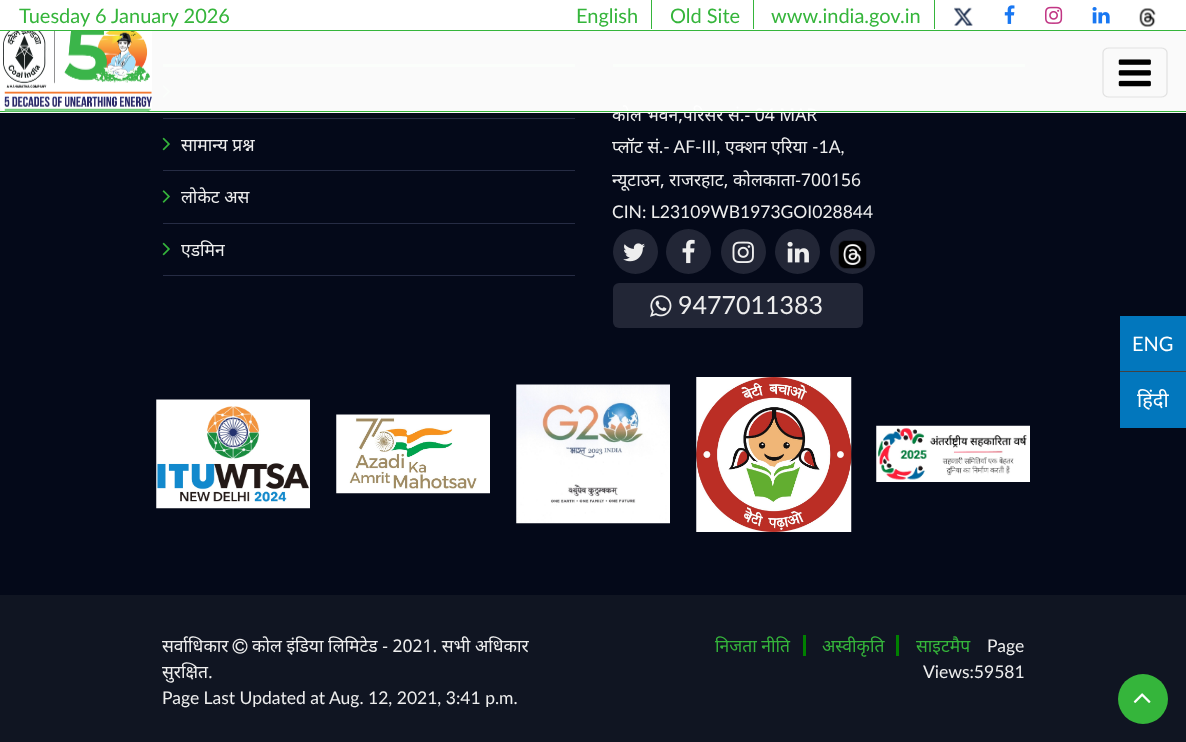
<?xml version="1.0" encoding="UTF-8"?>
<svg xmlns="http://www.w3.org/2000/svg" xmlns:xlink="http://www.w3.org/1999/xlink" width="1186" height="742">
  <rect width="100%" height="100%" fill="#101522" />
  <rect width="1186" height="30" fill="#ffffff" />
  <rect y="30" width="1186" height="1" fill="#35b53b" />
  <rect x="651" width="1" height="29" fill="#35b53b" />
  <rect x="753" width="1" height="29" fill="#35b53b" />
  <rect x="934" width="1" height="29" fill="#35b53b" />
  <image x="954" y="7" width="19" height="19" xlink:href="image1.png" />
  <image x="1004" y="5" width="11" height="19" xlink:href="image2.png" />
  <image x="1045" y="6" width="18" height="18" xlink:href="image3.png" />
  <image x="1092" y="7" width="18" height="17" xlink:href="image4.png" />
  <image x="1139" y="8" width="17" height="19" xlink:href="image5.png" />
  <rect y="31" width="1186" height="564" fill="#040919" />
  <rect x="163" y="64" width="412" height="3" fill="#35b53b" />
  <rect x="163" y="118" width="412" height="1" fill="#262c44" />
  <image x="162" y="85" width="8" height="13" xlink:href="image8.png" />
  <rect x="163" y="170" width="412" height="1" fill="#262c44" />
  <image x="162" y="137" width="8" height="14" xlink:href="image9.png" />
  <rect x="163" y="223" width="412" height="1" fill="#262c44" />
  <image x="162" y="190" width="8" height="13" xlink:href="image8.png" />
  <rect x="163" y="275" width="412" height="1" fill="#262c44" />
  <image x="162" y="242" width="8" height="14" xlink:href="image9.png" />
  <rect x="613" y="64" width="412" height="3" fill="#35b53b" />
  <circle cx="635.5" cy="251.5" r="22.5" fill="#222636" />
  <image x="623" y="243" width="22" height="19" xlink:href="image10.png" />
  <circle cx="688.5" cy="251.5" r="22.5" fill="#222636" />
  <image x="682" y="239" width="13" height="25" xlink:href="image11.png" />
  <circle cx="743.5" cy="251.5" r="22.5" fill="#222636" />
  <image x="732" y="241" width="22" height="22" xlink:href="image12.png" />
  <circle cx="797.5" cy="251.5" r="22.5" fill="#222636" />
  <image x="787" y="241" width="22" height="22" xlink:href="image13.png" />
  <circle cx="852.5" cy="251.5" r="22.5" fill="#222636" />
  <image x="838" y="240" width="29" height="29" xlink:href="image14.png" />
  <rect x="613" y="283" width="250" height="45" rx="6" fill="#222636" />
  <image x="650" y="295" width="22" height="22" xlink:href="image15.png" />
  <image x="156" y="399" width="154" height="110" xlink:href="image16.png" />
  <image x="336" y="414" width="154" height="80" xlink:href="image17.png" />
  <image x="516" y="384" width="154" height="140" xlink:href="image18.png" />
  <image x="696" y="377" width="156" height="155" xlink:href="image19.png" />
  <image x="876" y="425" width="154" height="57" xlink:href="image20.png" />
  <image x="232" y="638" width="16" height="16" xlink:href="image21.png" />
  <rect x="803" y="635" width="3" height="21" fill="#008000" />
  <rect x="896" y="635" width="3" height="21" fill="#008000" />
  <rect x="1120" y="316" width="66" height="112" fill="#0277bd" />
  <rect x="1120" y="371" width="66" height="1" fill="#424242" />
  <circle cx="1143" cy="699" r="25" fill="#35b53b" />
  <image x="1133" y="693" width="18" height="10" xlink:href="image22.png" />
  <text x="19" y="23" style="font-family: Lato; font-size: 20px; fill: #35b53b">Tuesday 6 January 2026</text>
  <text x="576" y="23" style="font-family: Lato; font-size: 20px; fill: #35b53b">English</text>
  <text x="670" y="23" style="font-family: Lato; font-size: 20px; fill: #35b53b">Old Site</text>
  <text x="771" y="23" style="font-family: Lato; font-size: 20px; fill: #35b53b">www.india.gov.in</text>
  <text x="181" y="151" style="font-family: Noto Sans; font-size: 17.5px; fill: #eeeeee">सामान्य प्रश्न</text>
  <text x="181" y="203" style="font-family: Noto Sans; font-size: 17.5px; fill: #eeeeee">लोकेट अस</text>
  <text x="181" y="256" style="font-family: Noto Sans; font-size: 17.5px; fill: #eeeeee">एडमिन</text>
  <text x="612" y="121" style="font-family: Noto Sans; font-size: 17.5px; fill: #eeeeee">कोल भवन,परिसर सं.- 04 MAR</text>
  <rect y="31" width="1186" height="82" fill="#ffffff" fill-opacity="0.98" />
  <path d="M 1109 48 h 52 c 3 0 6 2 6 4.5 v 40 c 0 2.5 -3 4.5 -6 4.5 h -52 c -3 0 -6 -2 -6 -4.5 v -40 c 0 -2.5 3 -4.5 6 -4.5 z" fill="none" stroke="#e1e1e1" stroke-width="1.2" />
  <image x="1118" y="59" width="33" height="28" xlink:href="image7.png" />
  <rect y="111" width="1186" height="1" fill="#35b53b" />
  <image x="0" y="31" width="152" height="81" xlink:href="image6.png" />
  <text x="612" y="153" style="font-family: Noto Sans; font-size: 17.5px; fill: #eeeeee">प्लॉट सं</text>
  <text x="659" y="153" style="font-family: Lato; font-size: 17.5px; fill: #eeeeee">.- AF-III,</text>
  <text x="725" y="153" style="font-family: Noto Sans; font-size: 17.5px; fill: #eeeeee">एक्शन एरिया</text>
  <text x="812" y="153" style="font-family: Lato; font-size: 17.5px; fill: #eeeeee">-1A,</text>
  <text x="612" y="186" style="font-family: Noto Sans; font-size: 17.5px; fill: #eeeeee">न्यूटाउन, राजरहाट, कोलकाता-700156</text>
  <text x="612" y="218" style="font-family: Lato; font-size: 17.5px; fill: #eeeeee">CIN: L23109WB1973GOI028844</text>
  <text x="678" y="314" style="font-family: Lato; font-size: 25px; fill: #eeeeee">9477011383</text>
  <text x="162" y="652" style="font-family: Noto Sans; font-size: 17.5px; fill: #eeeeee">सर्वाधिकार</text>
  <text x="252" y="652" style="font-family: Noto Sans; font-size: 17.5px; fill: #eeeeee">कोल इंडिया लिमिटेड - 2021. सभी अधिकार</text>
  <text x="162" y="678" style="font-family: Noto Sans; font-size: 17.5px; fill: #eeeeee">सुरक्षित.</text>
  <text x="162" y="704" style="font-family: Lato; font-size: 17.5px; fill: #eeeeee">Page Last Updated at Aug. 12, 2021, 3:41 p.m.</text>
  <text x="715" y="652" style="font-family: Noto Sans; font-size: 17.5px; fill: #35b53b">निजता नीति</text>
  <text x="822" y="652" style="font-family: Noto Sans; font-size: 17.5px; fill: #35b53b">अस्वीकृति</text>
  <text x="916" y="652" style="font-family: Noto Sans; font-size: 17.5px; fill: #35b53b">साइटमैप</text>
  <text x="987" y="652" style="font-family: Lato; font-size: 17.5px; fill: #eeeeee">Page</text>
  <text x="923" y="678" style="font-family: Lato; font-size: 17.5px; fill: #eeeeee">Views:59581</text>
  <text x="1132" y="351" style="font-family: Lato; font-size: 20px; fill: #ffffff">ENG</text>
  <text x="1137" y="407" style="font-family: Noto Sans; font-size: 20px; fill: #ffffff">हिंदी</text>
</svg>
